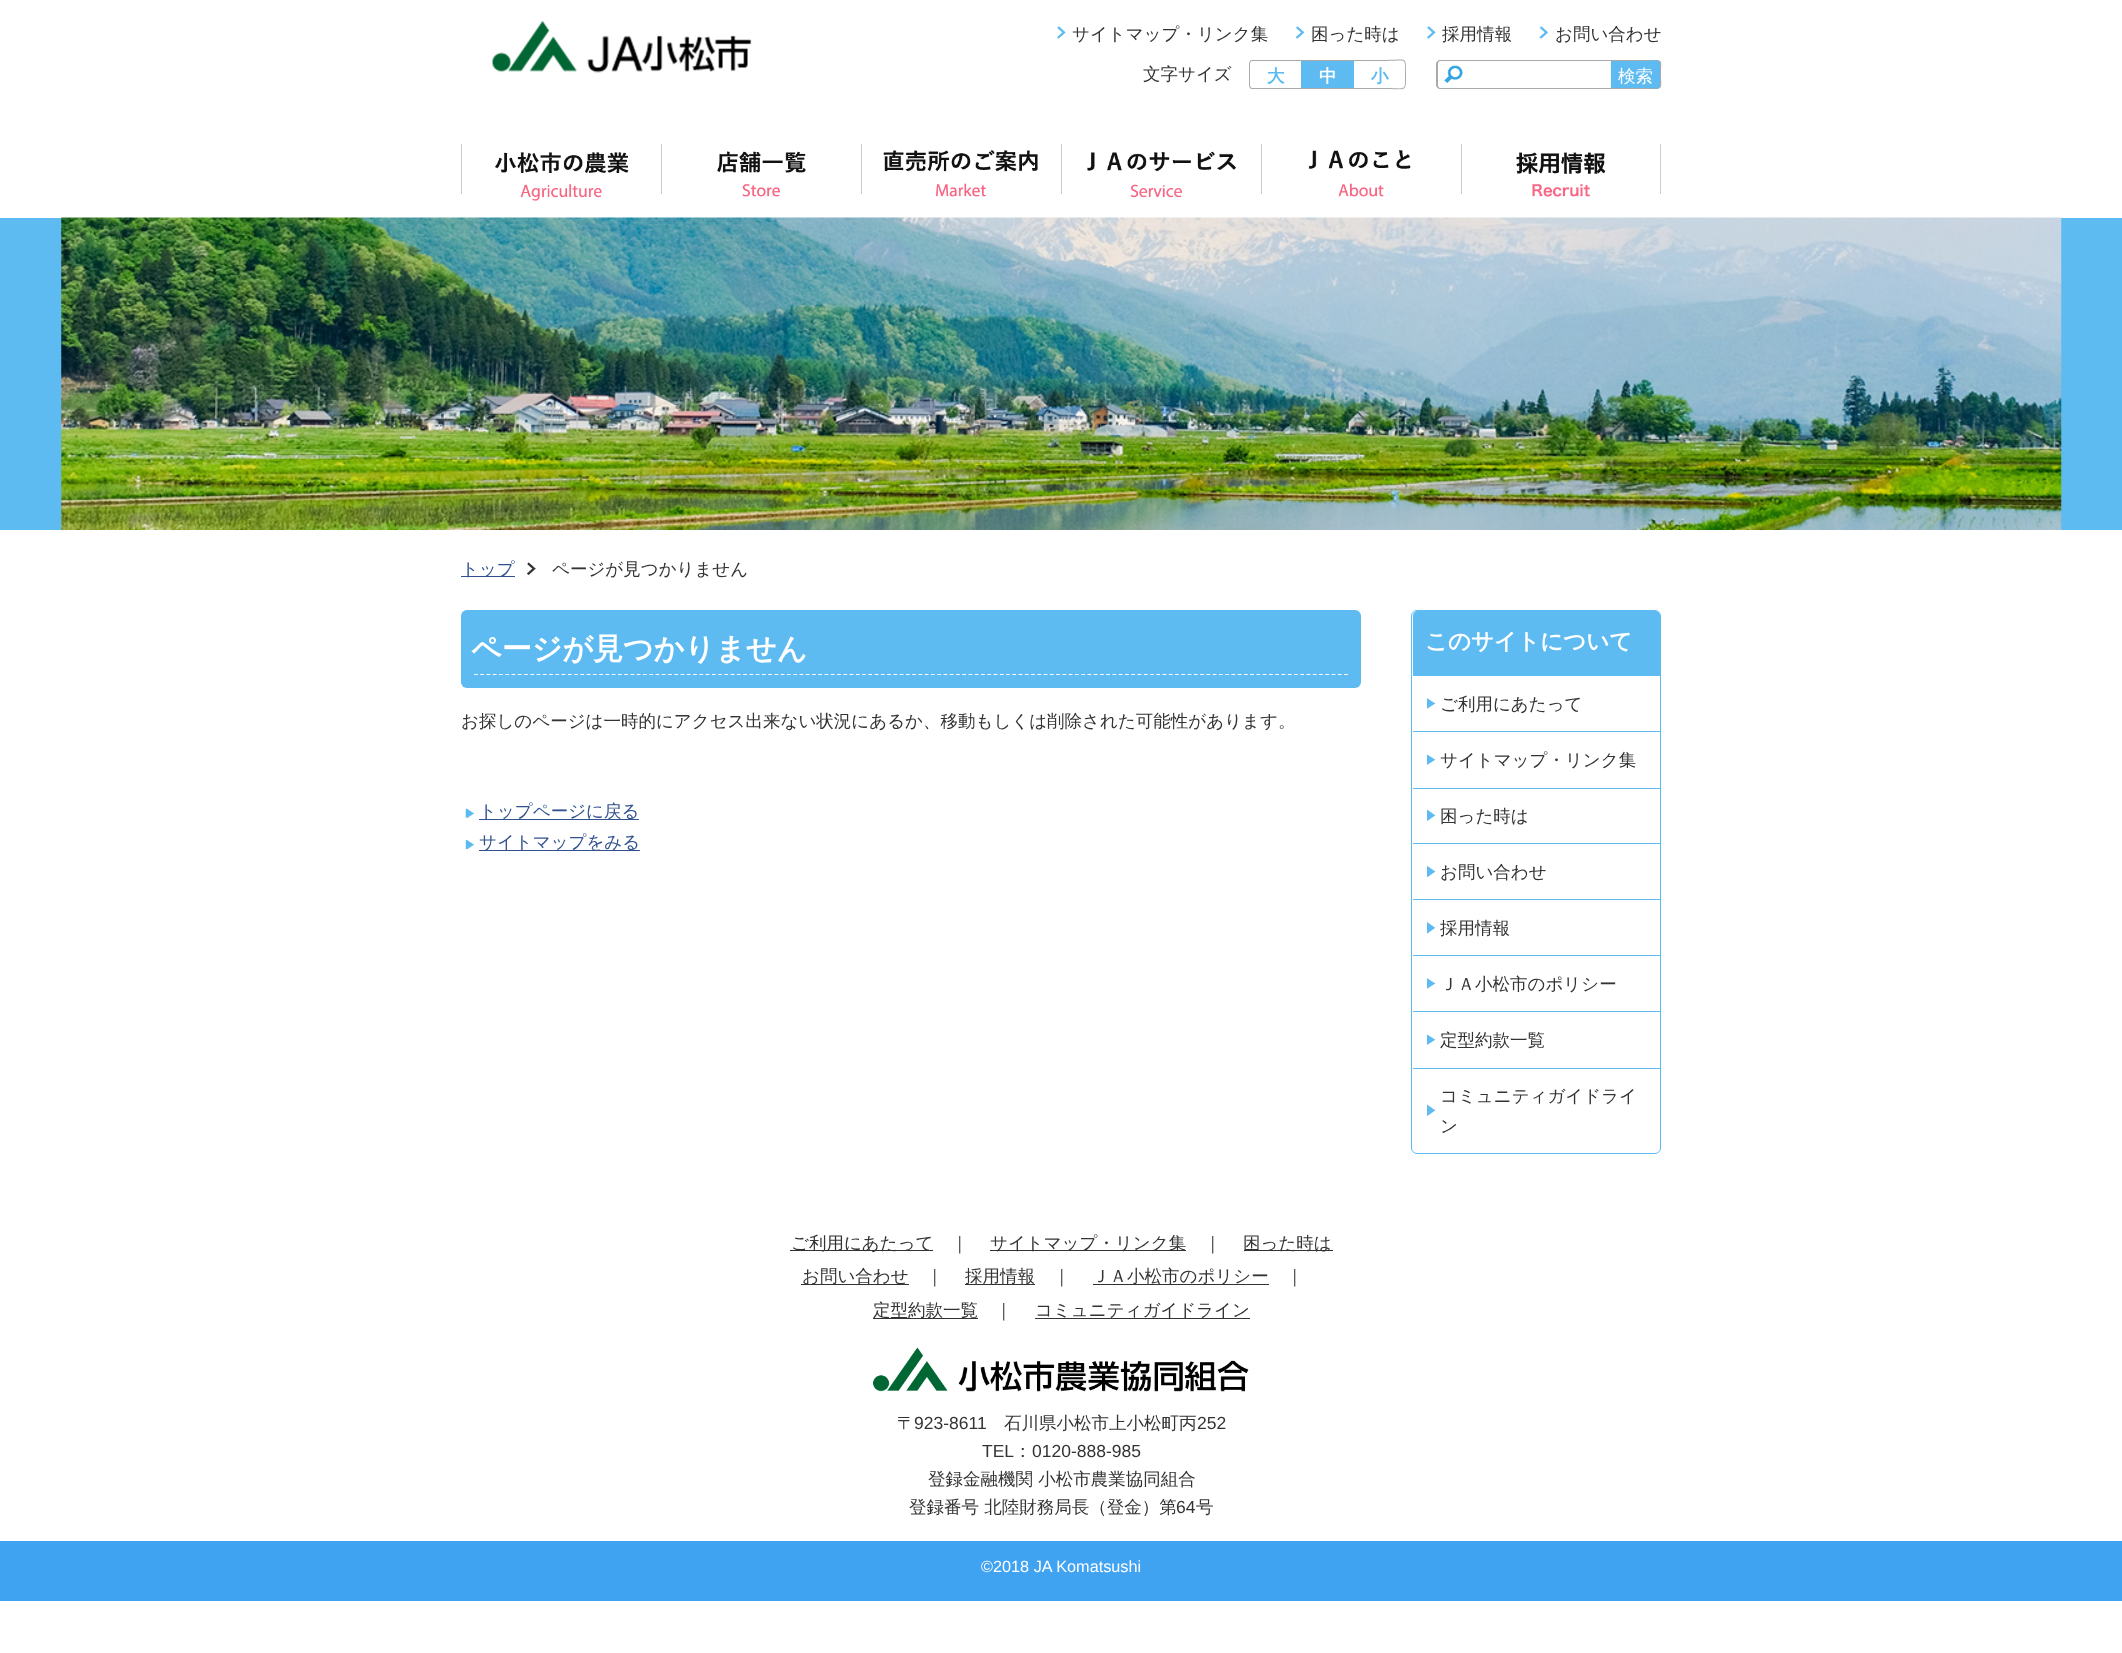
<?xml version="1.0" encoding="UTF-8"?>
<svg xmlns="http://www.w3.org/2000/svg" xmlns:xlink="http://www.w3.org/1999/xlink" width="2122" height="1653">
  <rect width="100%" height="100%" fill="#ffffff" />
  <image x="492" y="21" width="260" height="52" xlink:href="image1.png" />
  <image x="1057" y="26" width="9" height="13" xlink:href="image2.png" />
  <image x="1295" y="26" width="10" height="13" xlink:href="image3.png" />
  <image x="1427" y="26" width="9" height="13" xlink:href="image4.png" />
  <image x="1539" y="26" width="9" height="13" xlink:href="image5.png" />
  <path d="M 1252 60 h 49 v 29 h -49 c -2 0 -3 -2 -3 -4 v -21 c 0 -2 1 -4 3 -4 z m 0 1 h 49 v 27 h -49 c -1 0 -2 -2 -2 -3 v -21 c 0 -2 1 -3 2 -3 z" fill="#aaaaaa" fill-rule="evenodd" />
  <rect x="1301" y="61" width="53" height="27" fill="#5ebbf1" />
  <rect x="1301" y="60" width="53" height="1" fill="#aaaaaa" />
  <rect x="1301" y="88" width="53" height="1" fill="#aaaaaa" />
  <path d="M 1354 60 h 32 c 21 0 20 -4 20 14 c 0 19 1 15 -20 15 h -32 z m 0 1 h 32 c 21 0 19 -4 19 13 c 0 18 2 14 -19 14 h -32 z" fill="#aaaaaa" fill-rule="evenodd" />
  <image x="1444" y="65" width="19" height="18" xlink:href="image6.png" />
  <path d="M 1440 60 h 171 v 29 h -171 c -2 0 -4 -2 -4 -4 v -21 c 0 -2 2 -4 4 -4 z m 0 1 h 171 v 27 h -171 c -1 0 -2 -2 -2 -3 v -21 c 0 -2 1 -3 2 -3 z" fill="#aaaaaa" fill-rule="evenodd" />
  <path d="M 1611 60 h 46 c 2 0 4 2 4 4 v 21 c 0 2 -2 4 -4 4 h -46 z" fill="#5ebbf1" />
  <path d="M 1611 60 h 39 c 14 0 11 0 11 14 c 0 14 3 15 -11 15 h -39 z m 0 1 h 31 c 20 0 18 -4 18 13 c 0 18 2 14 -18 14 h -31 z" fill="#aaaaaa" fill-rule="evenodd" />
  <rect x="461" y="144" width="1" height="50" fill="#cccccc" />
  <image x="495" y="152" width="134" height="49" xlink:href="image7.png" />
  <rect x="661" y="144" width="1" height="50" fill="#cccccc" />
  <image x="717" y="151" width="89" height="46" xlink:href="image8.png" />
  <rect x="861" y="144" width="1" height="50" fill="#cccccc" />
  <image x="883" y="150" width="155" height="47" xlink:href="image9.png" />
  <rect x="1061" y="144" width="1" height="50" fill="#cccccc" />
  <image x="1087" y="151" width="149" height="47" xlink:href="image10.png" />
  <rect x="1261" y="144" width="1" height="50" fill="#cccccc" />
  <image x="1308" y="150" width="103" height="47" xlink:href="image11.png" />
  <rect x="1461" y="144" width="1" height="50" fill="#cccccc" />
  <image x="1516" y="152" width="90" height="45" xlink:href="image12.png" />
  <rect x="1660" y="144" width="1" height="50" fill="#cccccc" />
  <rect y="218" width="2122" height="312" fill="#5ebbf1" />
  <image x="61" y="217" width="2001" height="313" xlink:href="image13.png" />
  <rect x="461" y="576" width="54" height="1" fill="#32528d" />
  <image x="527" y="562" width="9" height="13" xlink:href="image14.png" />
  <rect x="461" y="610" width="900" height="78" rx="6" fill="#5ebbf1" />
  <path d="M 474 674.5 h 875" fill="none" stroke="#ffffff" stroke-width="1.2" stroke-dasharray="3.75 2.51" />
  <image x="465" y="808" width="10" height="10" xlink:href="image15.png" />
  <rect x="479" y="819" width="160" height="1" fill="#32528d" />
  <image x="465" y="839" width="10" height="11" xlink:href="image16.png" />
  <rect x="479" y="850" width="161" height="1" fill="#32528d" />
  <rect x="1411.5" y="610.5" width="249" height="543" rx="5.5" fill="none" stroke="#5ebbf1" />
  <path d="M 1418 611 h 237 c 3 0 5 2 5 5 v 60 h -247 v -60 c 0 -3 2 -5 5 -5 z" fill="#5ebbf1" />
  <rect x="1413" y="731" width="247" height="1" fill="#5ebbf1" />
  <image x="1427" y="698" width="9" height="11" xlink:href="image17.png" />
  <rect x="1413" y="788" width="247" height="1" fill="#5ebbf1" />
  <image x="1427" y="754" width="9" height="12" xlink:href="image18.png" />
  <rect x="1413" y="843" width="247" height="1" fill="#5ebbf1" />
  <image x="1427" y="809" width="9" height="13" xlink:href="image19.png" />
  <rect x="1413" y="899" width="247" height="1" fill="#5ebbf1" />
  <image x="1427" y="865" width="9" height="13" xlink:href="image20.png" />
  <rect x="1413" y="955" width="247" height="1" fill="#5ebbf1" />
  <image x="1427" y="921" width="9" height="13" xlink:href="image21.png" />
  <rect x="1413" y="1011" width="247" height="1" fill="#5ebbf1" />
  <image x="1427" y="978" width="9" height="11" xlink:href="image17.png" />
  <rect x="1413" y="1068" width="247" height="1" fill="#5ebbf1" />
  <image x="1427" y="1034" width="9" height="12" xlink:href="image22.png" />
  <image x="1427" y="1104" width="9" height="13" xlink:href="image19.png" />
  <rect x="790" y="1250" width="143" height="1" fill="#333333" />
  <rect x="990" y="1250" width="196" height="1" fill="#333333" />
  <rect x="1244" y="1250" width="89" height="1" fill="#333333" />
  <rect x="801" y="1284" width="108" height="1" fill="#333333" />
  <rect x="965" y="1284" width="70" height="1" fill="#333333" />
  <rect x="1093" y="1284" width="176" height="1" fill="#333333" />
  <rect x="873" y="1318" width="105" height="1" fill="#333333" />
  <rect x="1035" y="1318" width="215" height="1" fill="#333333" />
  <image x="873" y="1347" width="376" height="45" xlink:href="image23.png" />
  <rect y="1541" width="2122" height="60" fill="#40a3f2" />
  <text x="1072" y="40" style="font-family: WenQuanYi Zen Hei; font-size: 17.5px; font-weight: 500; fill: #333333">サイトマップ・リンク集</text>
  <text x="1311" y="40" style="font-family: WenQuanYi Zen Hei; font-size: 17.5px; font-weight: 500; fill: #333333">困った時は</text>
  <text x="1442" y="40" style="font-family: WenQuanYi Zen Hei; font-size: 17.5px; font-weight: 500; fill: #333333">採用情報</text>
  <text x="1555" y="40" style="font-family: WenQuanYi Zen Hei; font-size: 17.5px; font-weight: 500; fill: #333333">お問い合わせ</text>
  <text x="1143" y="80" style="font-family: WenQuanYi Zen Hei; font-size: 17.5px; font-weight: 500; fill: #333333">文字サイズ</text>
  <text x="1267" y="82" style="font-family: WenQuanYi Zen Hei; font-size: 17.5px; font-weight: bold; fill: #5ebbf1">大</text>
  <text x="1319" y="82" style="font-family: WenQuanYi Zen Hei; font-size: 17.5px; font-weight: bold; fill: #ffffff">中</text>
  <text x="1371" y="82" style="font-family: WenQuanYi Zen Hei; font-size: 17.5px; font-weight: bold; fill: #5ebbf1">小</text>
  <text x="1618" y="82" style="font-family: WenQuanYi Zen Hei; font-size: 17.5px; font-weight: 500; fill: #ffffff">検索</text>
  <text x="461" y="575" style="font-family: WenQuanYi Zen Hei; font-size: 17.5px; font-weight: 500; fill: #32528d">トップ</text>
  <text x="552" y="575" style="font-family: WenQuanYi Zen Hei; font-size: 17.5px; font-weight: 500; fill: #333333">ページが見つかりません</text>
  <text x="471" y="659" style="font-family: WenQuanYi Zen Hei; font-size: 30px; font-weight: bold; fill: #ffffff">ページが見つかりません</text>
  <text x="461" y="727" style="font-family: WenQuanYi Zen Hei; font-size: 17.5px; font-weight: 500; fill: #333333">お探しのページは一時的にアクセス出来ない状況にあるか、移動もしくは削除された可能性があります。</text>
  <text x="479" y="817" style="font-family: WenQuanYi Zen Hei; font-size: 17.5px; font-weight: 500; fill: #32528d">トップページに戻る</text>
  <text x="479" y="848" style="font-family: WenQuanYi Zen Hei; font-size: 17.5px; font-weight: 500; fill: #32528d">サイトマップをみる</text>
  <text x="1425" y="649" style="font-family: WenQuanYi Zen Hei; font-size: 22.5px; font-weight: bold; fill: #ffffff">このサイトについて</text>
  <text x="1440" y="710" style="font-family: WenQuanYi Zen Hei; font-size: 17.5px; font-weight: 500; fill: #333333">ご利用にあたって</text>
  <text x="1440" y="766" style="font-family: WenQuanYi Zen Hei; font-size: 17.5px; font-weight: 500; fill: #333333">サイトマップ・リンク集</text>
  <text x="1440" y="822" style="font-family: WenQuanYi Zen Hei; font-size: 17.5px; font-weight: 500; fill: #333333">困った時は</text>
  <text x="1440" y="878" style="font-family: WenQuanYi Zen Hei; font-size: 17.5px; font-weight: 500; fill: #333333">お問い合わせ</text>
  <text x="1440" y="934" style="font-family: WenQuanYi Zen Hei; font-size: 17.5px; font-weight: 500; fill: #333333">採用情報</text>
  <text x="1440" y="990" style="font-family: WenQuanYi Zen Hei; font-size: 17.5px; font-weight: 500; fill: #333333">ＪＡ小松市のポリシー</text>
  <text x="1440" y="1046" style="font-family: WenQuanYi Zen Hei; font-size: 17.5px; font-weight: 500; fill: #333333">定型約款一覧</text>
  <text x="1440" y="1102" style="font-family: WenQuanYi Zen Hei; font-size: 17.5px; font-weight: 500; fill: #333333">コミュニティガイドライ</text>
  <text x="1440" y="1132" style="font-family: WenQuanYi Zen Hei; font-size: 17.5px; font-weight: 500; fill: #333333">ン</text>
  <text x="791" y="1249" style="font-family: WenQuanYi Zen Hei; font-size: 17.5px; font-weight: 500; fill: #333333">ご利用にあたって</text>
  <text x="951" y="1249" style="font-family: WenQuanYi Zen Hei; font-size: 17.5px; font-weight: 500; fill: #333333">｜</text>
  <text x="990" y="1249" style="font-family: WenQuanYi Zen Hei; font-size: 17.5px; font-weight: 500; fill: #333333">サイトマップ・リンク集</text>
  <text x="1204" y="1249" style="font-family: WenQuanYi Zen Hei; font-size: 17.5px; font-weight: 500; fill: #333333">｜</text>
  <text x="1243" y="1249" style="font-family: WenQuanYi Zen Hei; font-size: 17.5px; font-weight: 500; fill: #333333">困った時は</text>
  <text x="802" y="1282" style="font-family: WenQuanYi Zen Hei; font-size: 17.5px; font-weight: 500; fill: #333333">お問い合わせ</text>
  <text x="926" y="1282" style="font-family: WenQuanYi Zen Hei; font-size: 17.5px; font-weight: 500; fill: #333333">｜</text>
  <text x="965" y="1282" style="font-family: WenQuanYi Zen Hei; font-size: 17.5px; font-weight: 500; fill: #333333">採用情報</text>
  <text x="1053" y="1282" style="font-family: WenQuanYi Zen Hei; font-size: 17.5px; font-weight: 500; fill: #333333">｜</text>
  <text x="1092" y="1282" style="font-family: WenQuanYi Zen Hei; font-size: 17.5px; font-weight: 500; fill: #333333">ＪＡ小松市のポリシー</text>
  <text x="1286" y="1282" style="font-family: WenQuanYi Zen Hei; font-size: 17.5px; font-weight: 500; fill: #333333">｜</text>
  <text x="873" y="1316" style="font-family: WenQuanYi Zen Hei; font-size: 17.5px; font-weight: 500; fill: #333333">定型約款一覧</text>
  <text x="995" y="1316" style="font-family: WenQuanYi Zen Hei; font-size: 17.5px; font-weight: 500; fill: #333333">｜</text>
  <text x="1035" y="1316" style="font-family: WenQuanYi Zen Hei; font-size: 17.5px; font-weight: 500; fill: #333333">コミュニティガイドライン</text>
  <text x="897" y="1429" style="font-family: WenQuanYi Zen Hei; font-size: 17.5px; font-weight: 500; fill: #333333">〒</text>
  <text x="914" y="1429" style="font-family: Liberation Sans; font-size: 17.5px; fill: #333333">923-8611</text>
  <text x="1004" y="1429" style="font-family: WenQuanYi Zen Hei; font-size: 17.5px; font-weight: 500; fill: #333333">石川県小松市上小松町丙</text>
  <text x="1197" y="1429" style="font-family: Liberation Sans; font-size: 17.5px; fill: #333333">252</text>
  <text x="982" y="1457" style="font-family: Liberation Sans; font-size: 17.5px; fill: #333333">TEL</text>
  <text x="1014" y="1457" style="font-family: WenQuanYi Zen Hei; font-size: 17.5px; font-weight: 500; fill: #333333">：</text>
  <text x="1032" y="1457" style="font-family: Liberation Sans; font-size: 17.5px; fill: #333333">0120-888-985</text>
  <text x="928" y="1485" style="font-family: WenQuanYi Zen Hei; font-size: 17.5px; font-weight: 500; fill: #333333">登録金融機関 小松市農業協同組合</text>
  <text x="909" y="1513" style="font-family: WenQuanYi Zen Hei; font-size: 17.5px; font-weight: 500; fill: #333333">登録番号 北陸財務局長（登金）第</text>
  <text x="1176" y="1513" style="font-family: Liberation Sans; font-size: 17.5px; fill: #333333">64</text>
  <text x="1196" y="1513" style="font-family: WenQuanYi Zen Hei; font-size: 17.5px; font-weight: 500; fill: #333333">号</text>
  <text x="981" y="1572" style="font-family: Liberation Sans; font-size: 16.25px; fill: #ffffff">©2018 JA Komatsushi</text>
</svg>
